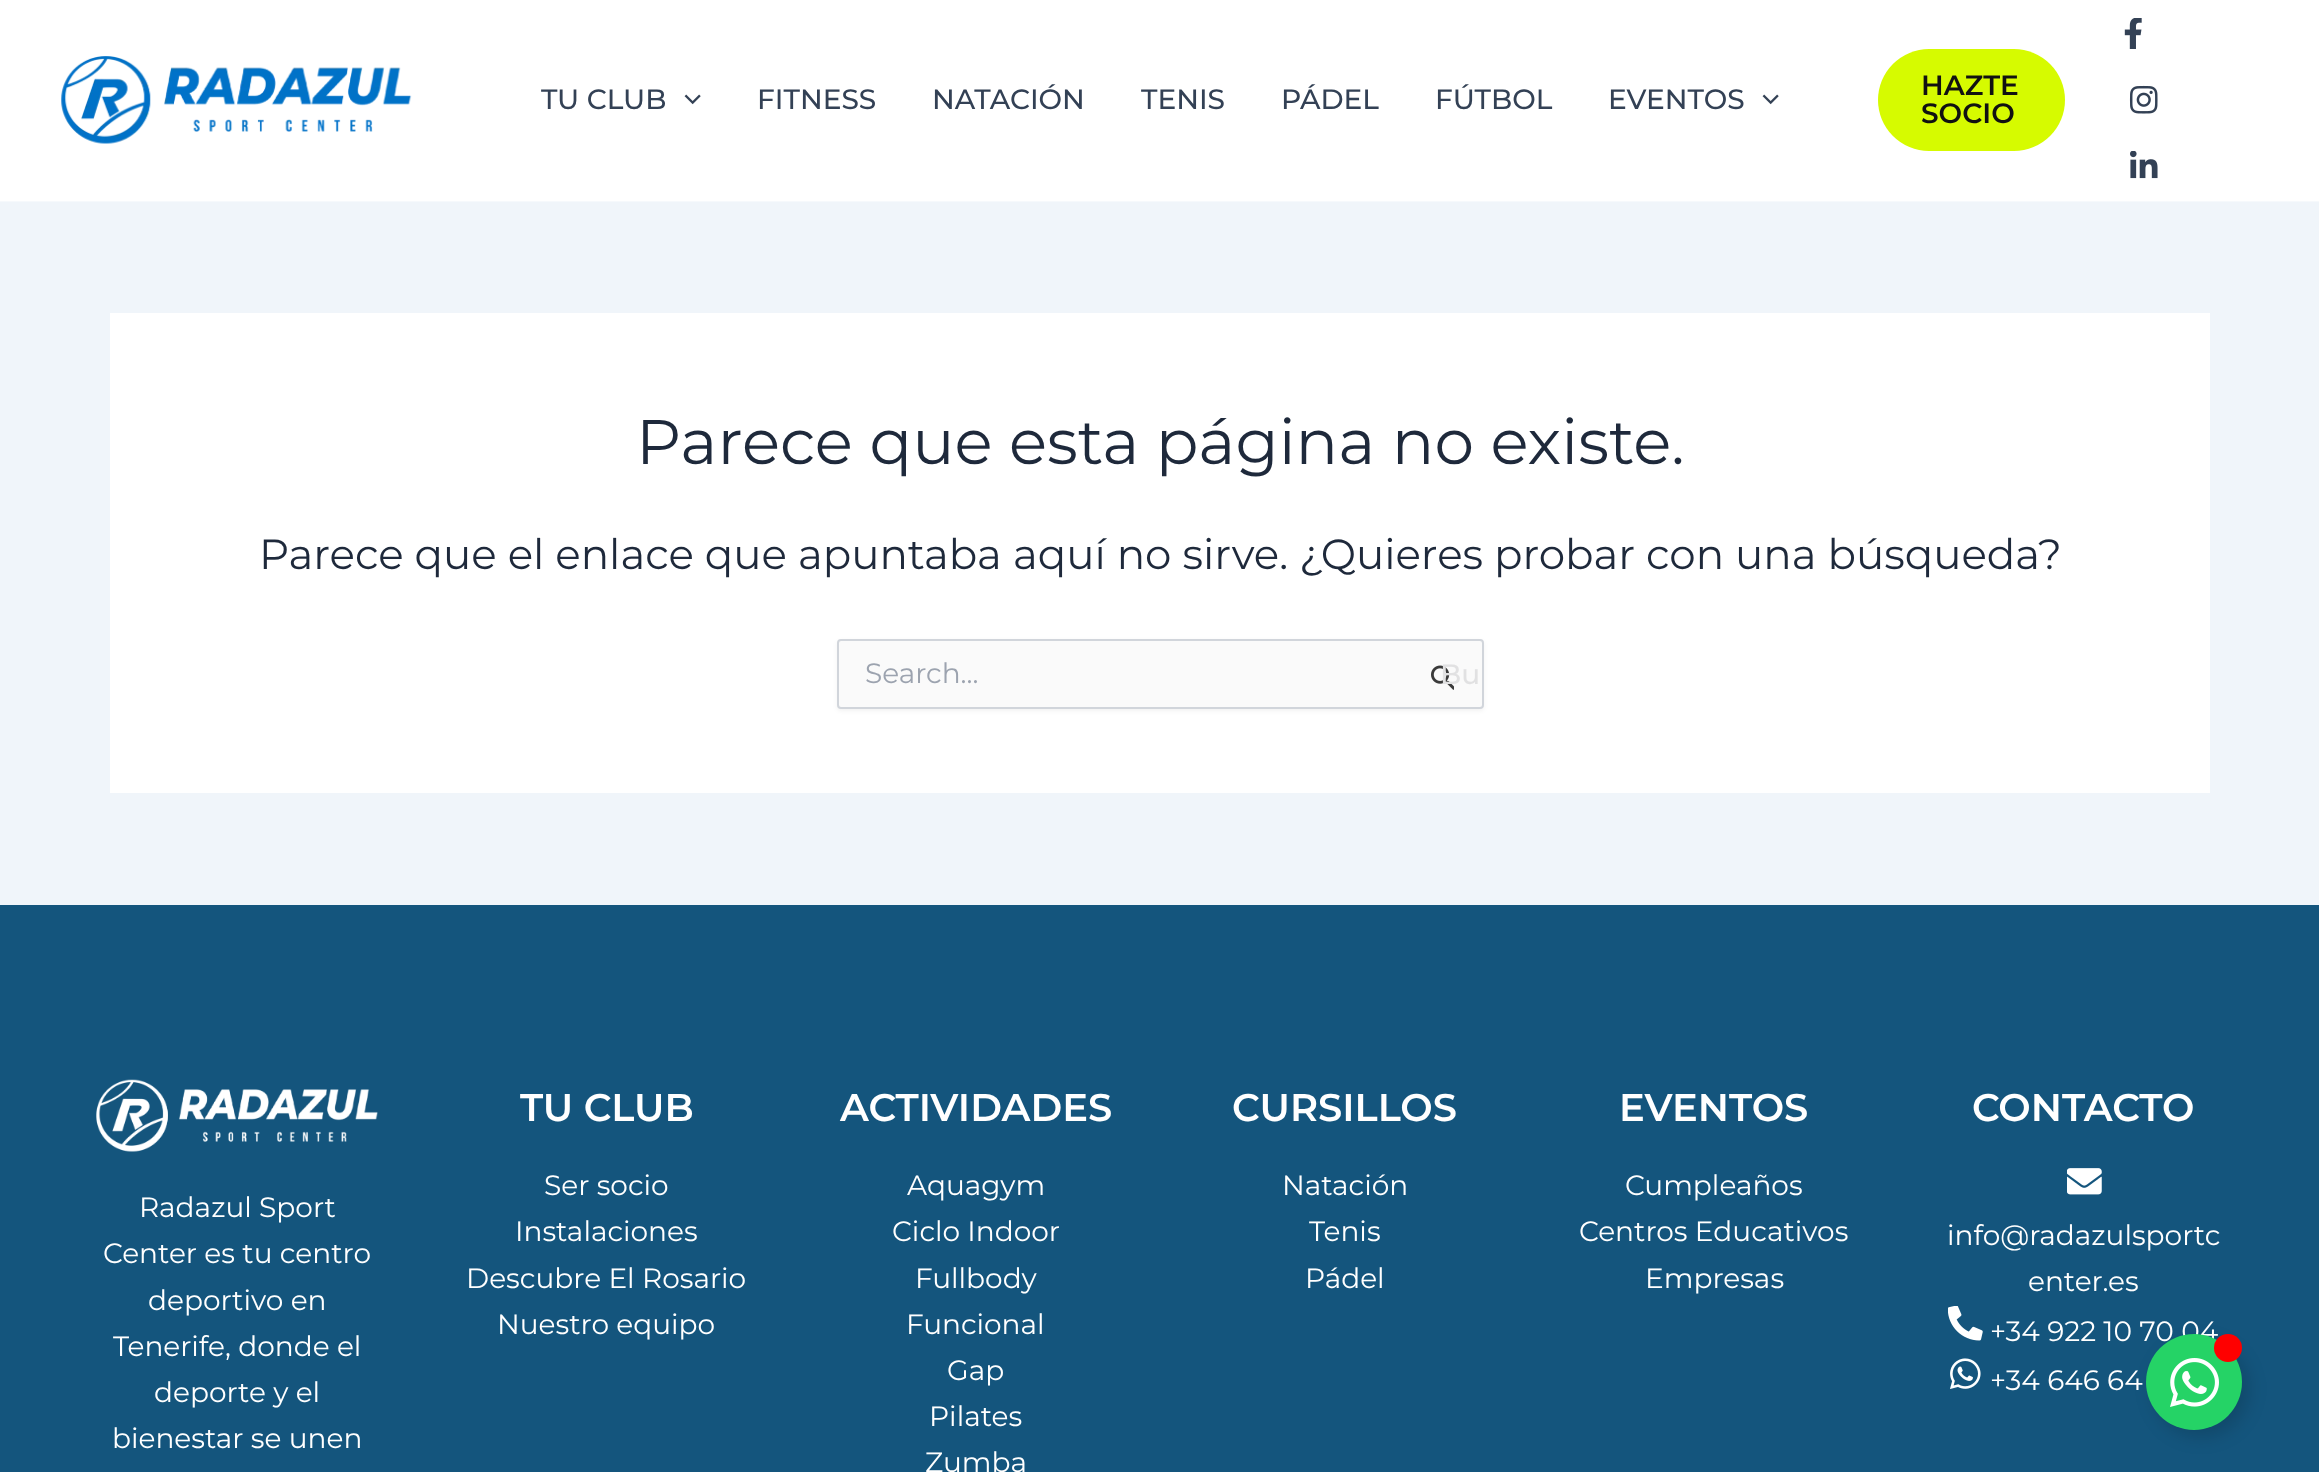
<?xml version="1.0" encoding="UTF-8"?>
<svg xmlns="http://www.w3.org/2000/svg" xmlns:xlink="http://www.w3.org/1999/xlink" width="2319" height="1472">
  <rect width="100%" height="100%" fill="#f0f5fa" />
  <rect y="201" width="2319" height="1" fill="#f6f9fc" />
  <rect width="2319" height="201" fill="#ffffff" />
  <image x="61" y="56" width="351" height="88" xlink:href="image1.png" />
  <image x="684" y="94" width="17" height="11" xlink:href="image2.png" />
  <image x="1762" y="94" width="17" height="11" xlink:href="image2.png" />
  <rect x="1878" y="49" width="187" height="102" rx="51" fill="#d6fb00" />
  <image x="2124" y="18" width="18" height="31" xlink:href="image3.png" />
  <image x="2129" y="85" width="29" height="29" xlink:href="image4.png" />
  <image x="2130" y="151" width="28" height="28" xlink:href="image5.png" />
  <rect x="110" y="313" width="2100" height="480" fill="#ffffff" />
  <rect x="837" y="641" width="647" height="70" rx="4" fill="#000000" fill-opacity="0.05" filter="blur(2px)" />
  <rect x="838" y="640" width="645" height="68" rx="3" fill="#fafafa" stroke="#d1d5db" stroke-width="2" />
  <image x="1431" y="665" width="23" height="25" xlink:href="image6.png" />
  <rect y="905" width="2319" height="567" fill="#14557d" />
  <image x="96" y="1079" width="282" height="73" xlink:href="image7.png" />
  <image x="2067" y="1168" width="35" height="27" xlink:href="image8.png" />
  <image x="1948" y="1306" width="35" height="35" xlink:href="image9.png" />
  <image x="1950" y="1358" width="31" height="31" xlink:href="image10.png" />
  <rect x="2153" y="1341" width="96" height="96" rx="48" fill="#000000" fill-opacity="0.15" filter="blur(9px)" />
  <text x="541" y="109" style="font-family: Montserrat; font-size: 28px; font-weight: 500; fill: #334155">TU CLUB</text>
  <text x="757" y="109" style="font-family: Montserrat; font-size: 28px; font-weight: 500; fill: #334155">FITNESS</text>
  <text x="932" y="109" style="font-family: Montserrat; font-size: 28px; font-weight: 500; fill: #334155">NATACIÓN</text>
  <text x="1141" y="109" style="font-family: Montserrat; font-size: 28px; font-weight: 500; fill: #334155">TENIS</text>
  <text x="1281" y="109" style="font-family: Montserrat; font-size: 28px; font-weight: 500; fill: #334155">PÁDEL</text>
  <text x="1435" y="109" style="font-family: Montserrat; font-size: 28px; font-weight: 500; fill: #334155">FÚTBOL</text>
  <text x="1608" y="109" style="font-family: Montserrat; font-size: 28px; font-weight: 500; fill: #334155">EVENTOS</text>
  <text x="1921" y="95" style="font-family: Montserrat; font-size: 28px; font-weight: 600; fill: #111111">HAZTE</text>
  <text x="1921" y="123" style="font-family: Montserrat; font-size: 28px; font-weight: 600; fill: #111111">SOCIO</text>
  <text x="636" y="464" style="font-family: Montserrat; font-size: 63px; fill: #1e293b">Parece que esta página no existe.</text>
  <text x="259" y="569" style="font-family: Montserrat; font-size: 42px; fill: #1e293b">Parece que el enlace que apuntaba aquí no sirve. ¿Quieres probar con una búsqueda?</text>
  <text x="865" y="683" style="font-family: Montserrat; font-size: 28px; fill: #9ca3af">Search...</text>
  <text x="1440" y="684" style="font-family: Montserrat; font-size: 28px; font-weight: 500; fill: #e1e1e2">Bu</text>
  <text x="139" y="1217" style="font-family: Montserrat; font-size: 28px; fill: #ffffff">Radazul Sport</text>
  <text x="103" y="1263" style="font-family: Montserrat; font-size: 28px; fill: #ffffff">Center es tu centro</text>
  <text x="148" y="1310" style="font-family: Montserrat; font-size: 28px; fill: #ffffff">deportivo en</text>
  <text x="113" y="1356" style="font-family: Montserrat; font-size: 28px; fill: #ffffff">Tenerife, donde el</text>
  <text x="154" y="1402" style="font-family: Montserrat; font-size: 28px; fill: #ffffff">deporte y el</text>
  <text x="112" y="1448" style="font-family: Montserrat; font-size: 28px; fill: #ffffff">bienestar se unen</text>
  <text x="520" y="1121" style="font-family: Montserrat; font-size: 38.5px; font-weight: 600; fill: #ffffff">TU CLUB</text>
  <text x="544" y="1195" style="font-family: Montserrat; font-size: 28px; fill: #ffffff">Ser socio</text>
  <text x="515" y="1241" style="font-family: Montserrat; font-size: 28px; fill: #ffffff">Instalaciones</text>
  <text x="466" y="1288" style="font-family: Montserrat; font-size: 28px; fill: #ffffff">Descubre El Rosario</text>
  <text x="497" y="1334" style="font-family: Montserrat; font-size: 28px; fill: #ffffff">Nuestro equipo</text>
  <text x="840" y="1121" style="font-family: Montserrat; font-size: 38.5px; font-weight: 600; fill: #ffffff">ACTIVIDADES</text>
  <text x="907" y="1195" style="font-family: Montserrat; font-size: 28px; fill: #ffffff">Aquagym</text>
  <text x="892" y="1241" style="font-family: Montserrat; font-size: 28px; fill: #ffffff">Ciclo Indoor</text>
  <text x="915" y="1288" style="font-family: Montserrat; font-size: 28px; fill: #ffffff">Fullbody</text>
  <text x="906" y="1334" style="font-family: Montserrat; font-size: 28px; fill: #ffffff">Funcional</text>
  <text x="947" y="1380" style="font-family: Montserrat; font-size: 28px; fill: #ffffff">Gap</text>
  <text x="929" y="1426" style="font-family: Montserrat; font-size: 28px; fill: #ffffff">Pilates</text>
  <text x="925" y="1472" style="font-family: Montserrat; font-size: 28px; fill: #ffffff">Zumba</text>
  <text x="1232" y="1121" style="font-family: Montserrat; font-size: 38.5px; font-weight: 600; fill: #ffffff">CURSILLOS</text>
  <text x="1282" y="1195" style="font-family: Montserrat; font-size: 28px; fill: #ffffff">Natación</text>
  <text x="1309" y="1241" style="font-family: Montserrat; font-size: 28px; fill: #ffffff">Tenis</text>
  <text x="1305" y="1288" style="font-family: Montserrat; font-size: 28px; fill: #ffffff">Pádel</text>
  <text x="1619" y="1121" style="font-family: Montserrat; font-size: 38.5px; font-weight: 600; fill: #ffffff">EVENTOS</text>
  <text x="1625" y="1195" style="font-family: Montserrat; font-size: 28px; fill: #ffffff">Cumpleaños</text>
  <text x="1579" y="1241" style="font-family: Montserrat; font-size: 28px; fill: #ffffff">Centros Educativos</text>
  <text x="1645" y="1288" style="font-family: Montserrat; font-size: 28px; fill: #ffffff">Empresas</text>
  <text x="1972" y="1121" style="font-family: Montserrat; font-size: 38.5px; font-weight: 600; fill: #ffffff">CONTACTO</text>
  <text x="1947" y="1245" style="font-family: Montserrat; font-size: 28px; fill: #ffffff">info@radazulsportc</text>
  <text x="2028" y="1291" style="font-family: Montserrat; font-size: 28px; fill: #ffffff">enter.es</text>
  <text x="1990" y="1341" style="font-family: Montserrat; font-size: 28px; fill: #ffffff">+34 922 10 70 04</text>
  <text x="1990" y="1390" style="font-family: Montserrat; font-size: 28px; fill: #ffffff">+34 646 64</text>
  <circle cx="2194" cy="1382" r="48" fill="#25d366" />
  <image x="2170" y="1358" width="49" height="49" xlink:href="image11.png" />
  <circle cx="2228" cy="1348" r="14" fill="#ff0000" />
</svg>
